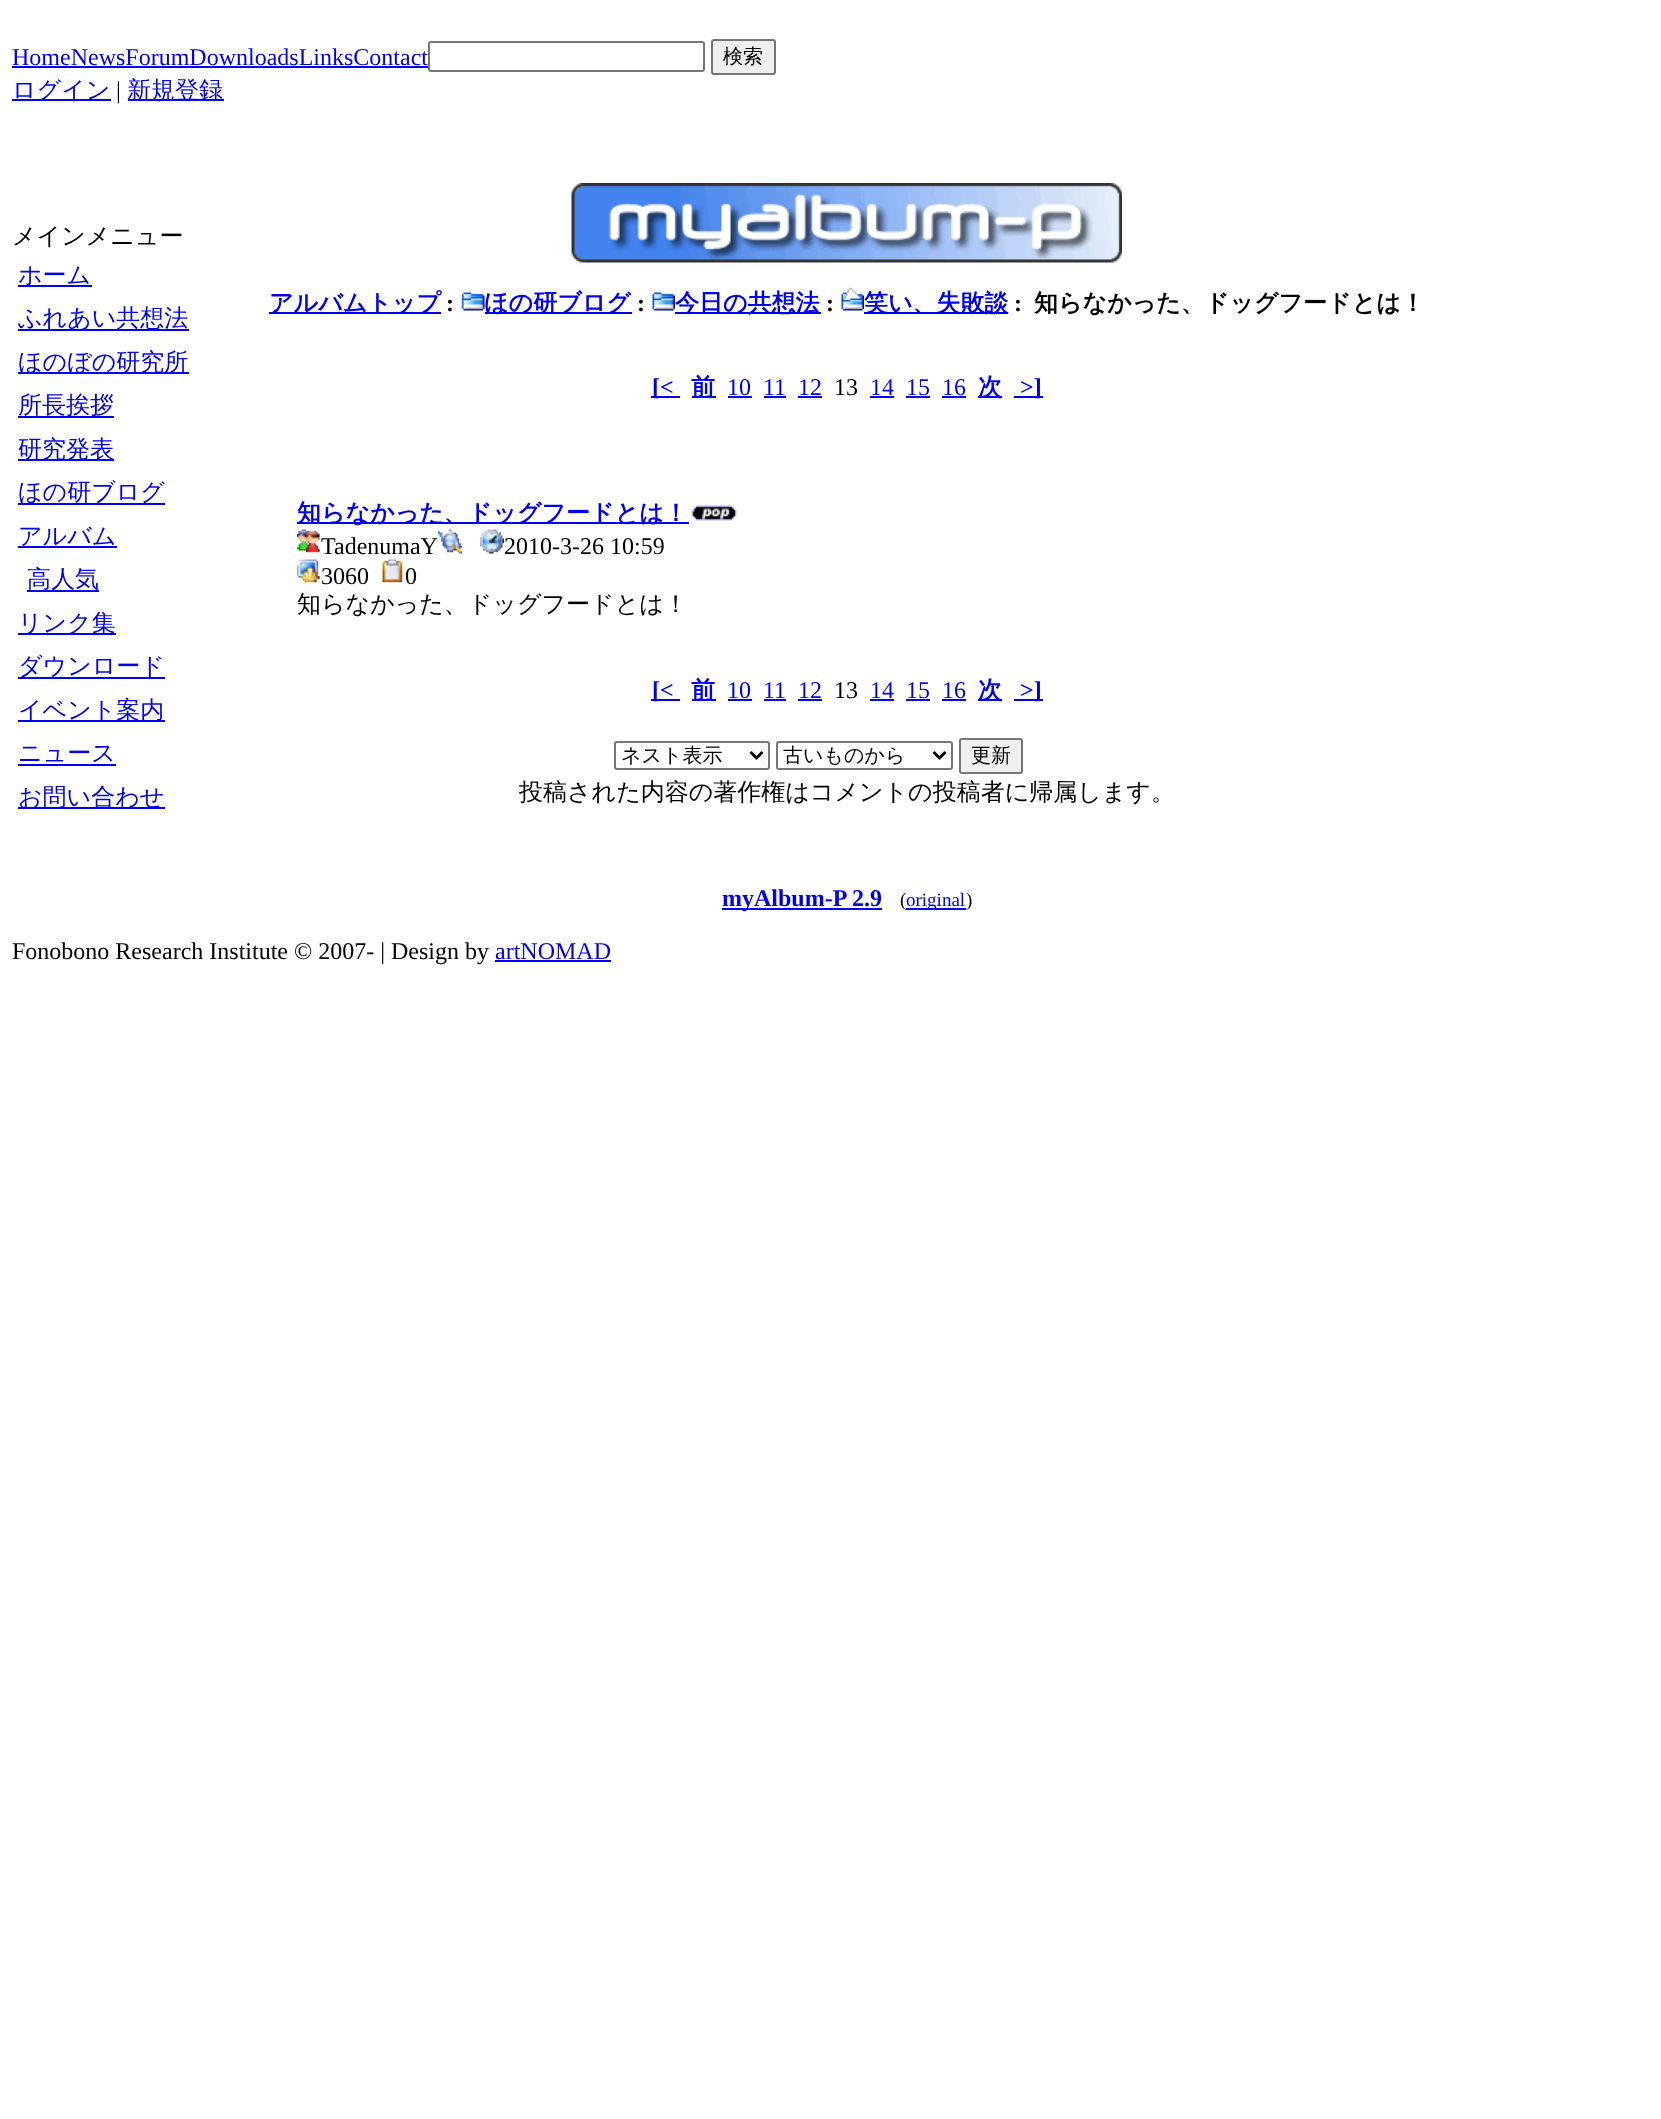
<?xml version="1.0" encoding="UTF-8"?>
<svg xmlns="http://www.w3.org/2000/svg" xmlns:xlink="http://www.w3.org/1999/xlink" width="1661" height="2119">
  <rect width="100%" height="100%" fill="#ffffff" />
  <rect x="12" y="66" width="416" height="2" fill="#0000ee" />
  <rect x="429" y="42" width="275" height="29" rx="2" fill="none" stroke="#767676" stroke-width="2" />
  <rect x="712" y="40" width="63" height="34" rx="2" fill="#efefef" stroke="#767676" stroke-width="2" />
  <rect x="12" y="99" width="99" height="2" fill="#0000ee" />
  <rect x="128" y="99" width="96" height="2" fill="#0000ee" />
  <rect x="18" y="285" width="74" height="2" fill="#0000ee" />
  <rect x="18" y="329" width="171" height="2" fill="#0000ee" />
  <rect x="18" y="372" width="171" height="2" fill="#0000ee" />
  <rect x="18" y="416" width="96" height="2" fill="#0000ee" />
  <rect x="18" y="459" width="96" height="2" fill="#0000ee" />
  <rect x="18" y="503" width="147" height="2" fill="#0000ee" />
  <rect x="18" y="546" width="99" height="2" fill="#0000ee" />
  <rect x="27" y="590" width="72" height="2" fill="#0000ee" />
  <rect x="18" y="633" width="98" height="2" fill="#0000ee" />
  <rect x="18" y="677" width="147" height="2" fill="#0000ee" />
  <rect x="18" y="720" width="147" height="2" fill="#0000ee" />
  <rect x="18" y="764" width="98" height="2" fill="#0000ee" />
  <rect x="18" y="807" width="147" height="2" fill="#0000ee" />
  <image x="571" y="183" width="551" height="80" xlink:href="image1.png" />
  <rect x="269" y="312" width="172" height="2" fill="#0000ee" />
  <image x="461" y="292" width="24" height="19" xlink:href="image2.png" />
  <rect x="485" y="312" width="147" height="2" fill="#0000ee" />
  <image x="652" y="292" width="23" height="19" xlink:href="image3.png" />
  <rect x="675" y="312" width="146" height="2" fill="#0000ee" />
  <image x="841" y="287" width="23" height="24" xlink:href="image4.png" />
  <rect x="864" y="312" width="144" height="2" fill="#0000ee" />
  <rect x="651" y="396" width="29" height="2" fill="#0000ee" />
  <rect x="692" y="396" width="24" height="2" fill="#0000ee" />
  <rect x="728" y="396" width="24" height="2" fill="#0000ee" />
  <rect x="764" y="396" width="22" height="2" fill="#0000ee" />
  <rect x="798" y="396" width="24" height="2" fill="#0000ee" />
  <rect x="870" y="396" width="24" height="2" fill="#0000ee" />
  <rect x="906" y="396" width="24" height="2" fill="#0000ee" />
  <rect x="942" y="396" width="24" height="2" fill="#0000ee" />
  <rect x="978" y="396" width="24" height="2" fill="#0000ee" />
  <rect x="1014" y="396" width="29" height="2" fill="#0000ee" />
  <rect x="297" y="522" width="392" height="2" fill="#0000ee" />
  <image x="691" y="505" width="46" height="16" xlink:href="image5.png" />
  <image x="297" y="529" width="23" height="24" xlink:href="image6.png" />
  <image x="438" y="529" width="24" height="25" xlink:href="image7.png" />
  <image x="480" y="529" width="24" height="25" xlink:href="image8.png" />
  <image x="297" y="559" width="23" height="24" xlink:href="image9.png" />
  <image x="382" y="559" width="21" height="24" xlink:href="image10.png" />
  <rect x="651" y="699" width="29" height="2" fill="#0000ee" />
  <rect x="692" y="699" width="24" height="2" fill="#0000ee" />
  <rect x="728" y="699" width="24" height="2" fill="#0000ee" />
  <rect x="764" y="699" width="22" height="2" fill="#0000ee" />
  <rect x="798" y="699" width="24" height="2" fill="#0000ee" />
  <rect x="870" y="699" width="24" height="2" fill="#0000ee" />
  <rect x="906" y="699" width="24" height="2" fill="#0000ee" />
  <rect x="942" y="699" width="24" height="2" fill="#0000ee" />
  <rect x="978" y="699" width="24" height="2" fill="#0000ee" />
  <rect x="1014" y="699" width="29" height="2" fill="#0000ee" />
  <rect x="615" y="742" width="154" height="27" rx="2" fill="none" stroke="#767676" stroke-width="2" />
  <path d="M 750.5 752 l 6 6 l 6 -6" fill="none" stroke="#000000" stroke-width="3" />
  <rect x="777" y="742" width="175" height="27" rx="2" fill="none" stroke="#767676" stroke-width="2" />
  <path d="M 933.5 752 l 6 6 l 6 -6" fill="none" stroke="#000000" stroke-width="3" />
  <rect x="960" y="739" width="62" height="34" rx="2" fill="#efefef" stroke="#767676" stroke-width="2" />
  <rect x="722" y="908" width="160" height="2" fill="#0000ee" />
  <rect x="906" y="908" width="60" height="2" fill="#0000ee" />
  <rect x="495" y="960" width="116" height="2" fill="#0000ee" />
  <text x="12" y="65" style="font-family: Liberation Serif; font-size: 24px; fill: #0000ee">HomeNewsForumDownloadsLinksContact</text>
  <text x="723" y="63" style="font-family: WenQuanYi Zen Hei; font-size: 20px; font-weight: 500; fill: #000000">検索</text>
  <text x="12" y="98" style="font-family: WenQuanYi Zen Hei; font-size: 24px; font-weight: 500; fill: #0000ee">ログイン</text>
  <text x="116" y="98" style="font-family: Liberation Serif; font-size: 24px; fill: #000000">|</text>
  <text x="127" y="98" style="font-family: WenQuanYi Zen Hei; font-size: 24px; font-weight: 500; fill: #0000ee">新規登録</text>
  <text x="12" y="244" style="font-family: WenQuanYi Zen Hei; font-size: 24px; font-weight: 500; fill: #000000">メインメニュー</text>
  <text x="18" y="283" style="font-family: WenQuanYi Zen Hei; font-size: 24px; font-weight: 500; fill: #0000ee">ホーム</text>
  <text x="18" y="326" style="font-family: WenQuanYi Zen Hei; font-size: 24px; font-weight: 500; fill: #0000ee">ふれあい共想法</text>
  <text x="18" y="370" style="font-family: WenQuanYi Zen Hei; font-size: 24px; font-weight: 500; fill: #0000ee">ほのぼの研究所</text>
  <text x="18" y="413" style="font-family: WenQuanYi Zen Hei; font-size: 24px; font-weight: 500; fill: #0000ee">所長挨拶</text>
  <text x="18" y="457" style="font-family: WenQuanYi Zen Hei; font-size: 24px; font-weight: 500; fill: #0000ee">研究発表</text>
  <text x="18" y="500" style="font-family: WenQuanYi Zen Hei; font-size: 24px; font-weight: 500; fill: #0000ee">ほの研ブログ</text>
  <text x="18" y="544" style="font-family: WenQuanYi Zen Hei; font-size: 24px; font-weight: 500; fill: #0000ee">アルバム</text>
  <text x="27" y="587" style="font-family: WenQuanYi Zen Hei; font-size: 24px; font-weight: 500; fill: #0000ee">高人気</text>
  <text x="18" y="631" style="font-family: WenQuanYi Zen Hei; font-size: 24px; font-weight: 500; fill: #0000ee">リンク集</text>
  <text x="18" y="674" style="font-family: WenQuanYi Zen Hei; font-size: 24px; font-weight: 500; fill: #0000ee">ダウンロード</text>
  <text x="18" y="718" style="font-family: WenQuanYi Zen Hei; font-size: 24px; font-weight: 500; fill: #0000ee">イベント案内</text>
  <text x="18" y="761" style="font-family: WenQuanYi Zen Hei; font-size: 24px; font-weight: 500; fill: #0000ee">ニュース</text>
  <text x="18" y="805" style="font-family: WenQuanYi Zen Hei; font-size: 24px; font-weight: 500; fill: #0000ee">お問い合わせ</text>
  <text x="269" y="311" style="font-family: WenQuanYi Zen Hei; font-size: 24px; font-weight: bold; fill: #0000ee">アルバムトップ</text>
  <text x="446" y="311" style="font-family: Liberation Serif; font-size: 24px; font-weight: bold; fill: #000000">:</text>
  <text x="484" y="311" style="font-family: WenQuanYi Zen Hei; font-size: 24px; font-weight: bold; fill: #0000ee">ほの研ブログ</text>
  <text x="637" y="311" style="font-family: Liberation Serif; font-size: 24px; font-weight: bold; fill: #000000">:</text>
  <text x="675" y="311" style="font-family: WenQuanYi Zen Hei; font-size: 24px; font-weight: bold; fill: #0000ee">今日の共想法</text>
  <text x="826" y="311" style="font-family: Liberation Serif; font-size: 24px; font-weight: bold; fill: #000000">:</text>
  <text x="864" y="311" style="font-family: WenQuanYi Zen Hei; font-size: 24px; font-weight: bold; fill: #0000ee">笑い、失敗談</text>
  <text x="1014" y="311" style="font-family: Liberation Serif; font-size: 24px; font-weight: bold; fill: #000000">:</text>
  <text x="1034" y="311" style="font-family: WenQuanYi Zen Hei; font-size: 24px; font-weight: bold; fill: #000000">知らなかった、ドッグフードとは！</text>
  <text x="652" y="395" style="font-family: Liberation Serif; font-size: 24px; font-weight: bold; fill: #0000ee">[&lt;</text>
  <text x="691" y="395" style="font-family: WenQuanYi Zen Hei; font-size: 24px; font-weight: bold; fill: #0000ee">前</text>
  <text x="727" y="395" style="font-family: Liberation Serif; font-size: 24px; fill: #0000ee">10</text>
  <text x="763" y="395" style="font-family: Liberation Serif; font-size: 24px; fill: #0000ee">11</text>
  <text x="798" y="395" style="font-family: Liberation Serif; font-size: 24px; fill: #0000ee">12</text>
  <text x="834" y="395" style="font-family: Liberation Serif; font-size: 24px; fill: #000000">13</text>
  <text x="870" y="395" style="font-family: Liberation Serif; font-size: 24px; fill: #0000ee">14</text>
  <text x="906" y="395" style="font-family: Liberation Serif; font-size: 24px; fill: #0000ee">15</text>
  <text x="942" y="395" style="font-family: Liberation Serif; font-size: 24px; fill: #0000ee">16</text>
  <text x="978" y="395" style="font-family: WenQuanYi Zen Hei; font-size: 24px; font-weight: bold; fill: #0000ee">次</text>
  <text x="1020" y="395" style="font-family: Liberation Serif; font-size: 24px; font-weight: bold; fill: #0000ee">&gt;]</text>
  <text x="297" y="521" style="font-family: WenQuanYi Zen Hei; font-size: 24px; font-weight: bold; fill: #0000ee">知らなかった、ドッグフードとは！</text>
  <text x="321" y="554" style="font-family: Liberation Serif; font-size: 24px; fill: #000000">TadenumaY</text>
  <text x="504" y="554" style="font-family: Liberation Serif; font-size: 24px; fill: #000000">2010-3-26 10:59</text>
  <text x="321" y="584" style="font-family: Liberation Serif; font-size: 24px; fill: #000000">3060</text>
  <text x="405" y="584" style="font-family: Liberation Serif; font-size: 24px; fill: #000000">0</text>
  <text x="297" y="612" style="font-family: WenQuanYi Zen Hei; font-size: 24px; font-weight: 500; fill: #000000">知らなかった、ドッグフードとは！</text>
  <text x="652" y="698" style="font-family: Liberation Serif; font-size: 24px; font-weight: bold; fill: #0000ee">[&lt;</text>
  <text x="691" y="698" style="font-family: WenQuanYi Zen Hei; font-size: 24px; font-weight: bold; fill: #0000ee">前</text>
  <text x="727" y="698" style="font-family: Liberation Serif; font-size: 24px; fill: #0000ee">10</text>
  <text x="763" y="698" style="font-family: Liberation Serif; font-size: 24px; fill: #0000ee">11</text>
  <text x="798" y="698" style="font-family: Liberation Serif; font-size: 24px; fill: #0000ee">12</text>
  <text x="834" y="698" style="font-family: Liberation Serif; font-size: 24px; fill: #000000">13</text>
  <text x="870" y="698" style="font-family: Liberation Serif; font-size: 24px; fill: #0000ee">14</text>
  <text x="906" y="698" style="font-family: Liberation Serif; font-size: 24px; fill: #0000ee">15</text>
  <text x="942" y="698" style="font-family: Liberation Serif; font-size: 24px; fill: #0000ee">16</text>
  <text x="978" y="698" style="font-family: WenQuanYi Zen Hei; font-size: 24px; font-weight: bold; fill: #0000ee">次</text>
  <text x="1020" y="698" style="font-family: Liberation Serif; font-size: 24px; font-weight: bold; fill: #0000ee">&gt;]</text>
  <text x="621" y="762" style="font-family: WenQuanYi Zen Hei; font-size: 20px; font-weight: 500; fill: #000000">ネスト表示</text>
  <text x="783" y="762" style="font-family: WenQuanYi Zen Hei; font-size: 20px; font-weight: 500; fill: #000000">古いものから</text>
  <text x="971" y="762" style="font-family: WenQuanYi Zen Hei; font-size: 20px; font-weight: 500; fill: #000000">更新</text>
  <text x="519" y="800" style="font-family: WenQuanYi Zen Hei; font-size: 24px; font-weight: 500; fill: #000000">投稿された内容の著作権はコメントの投稿者に帰属します。</text>
  <text x="722" y="906" style="font-family: Liberation Serif; font-size: 24px; font-weight: bold; fill: #0000ee">myAlbum-P 2.9</text>
  <text x="900" y="906" style="font-family: Liberation Serif; font-size: 19px; fill: #000000">(</text>
  <text x="906" y="906" style="font-family: Liberation Serif; font-size: 19px; fill: #0000ee">original</text>
  <text x="966" y="906" style="font-family: Liberation Serif; font-size: 19px; fill: #000000">)</text>
  <text x="12" y="959" style="font-family: Liberation Serif; font-size: 24px; fill: #000000">Fonobono Research Institute © 2007- | Design by</text>
  <text x="495" y="959" style="font-family: Liberation Serif; font-size: 24px; fill: #0000ee">artNOMAD</text>
</svg>
